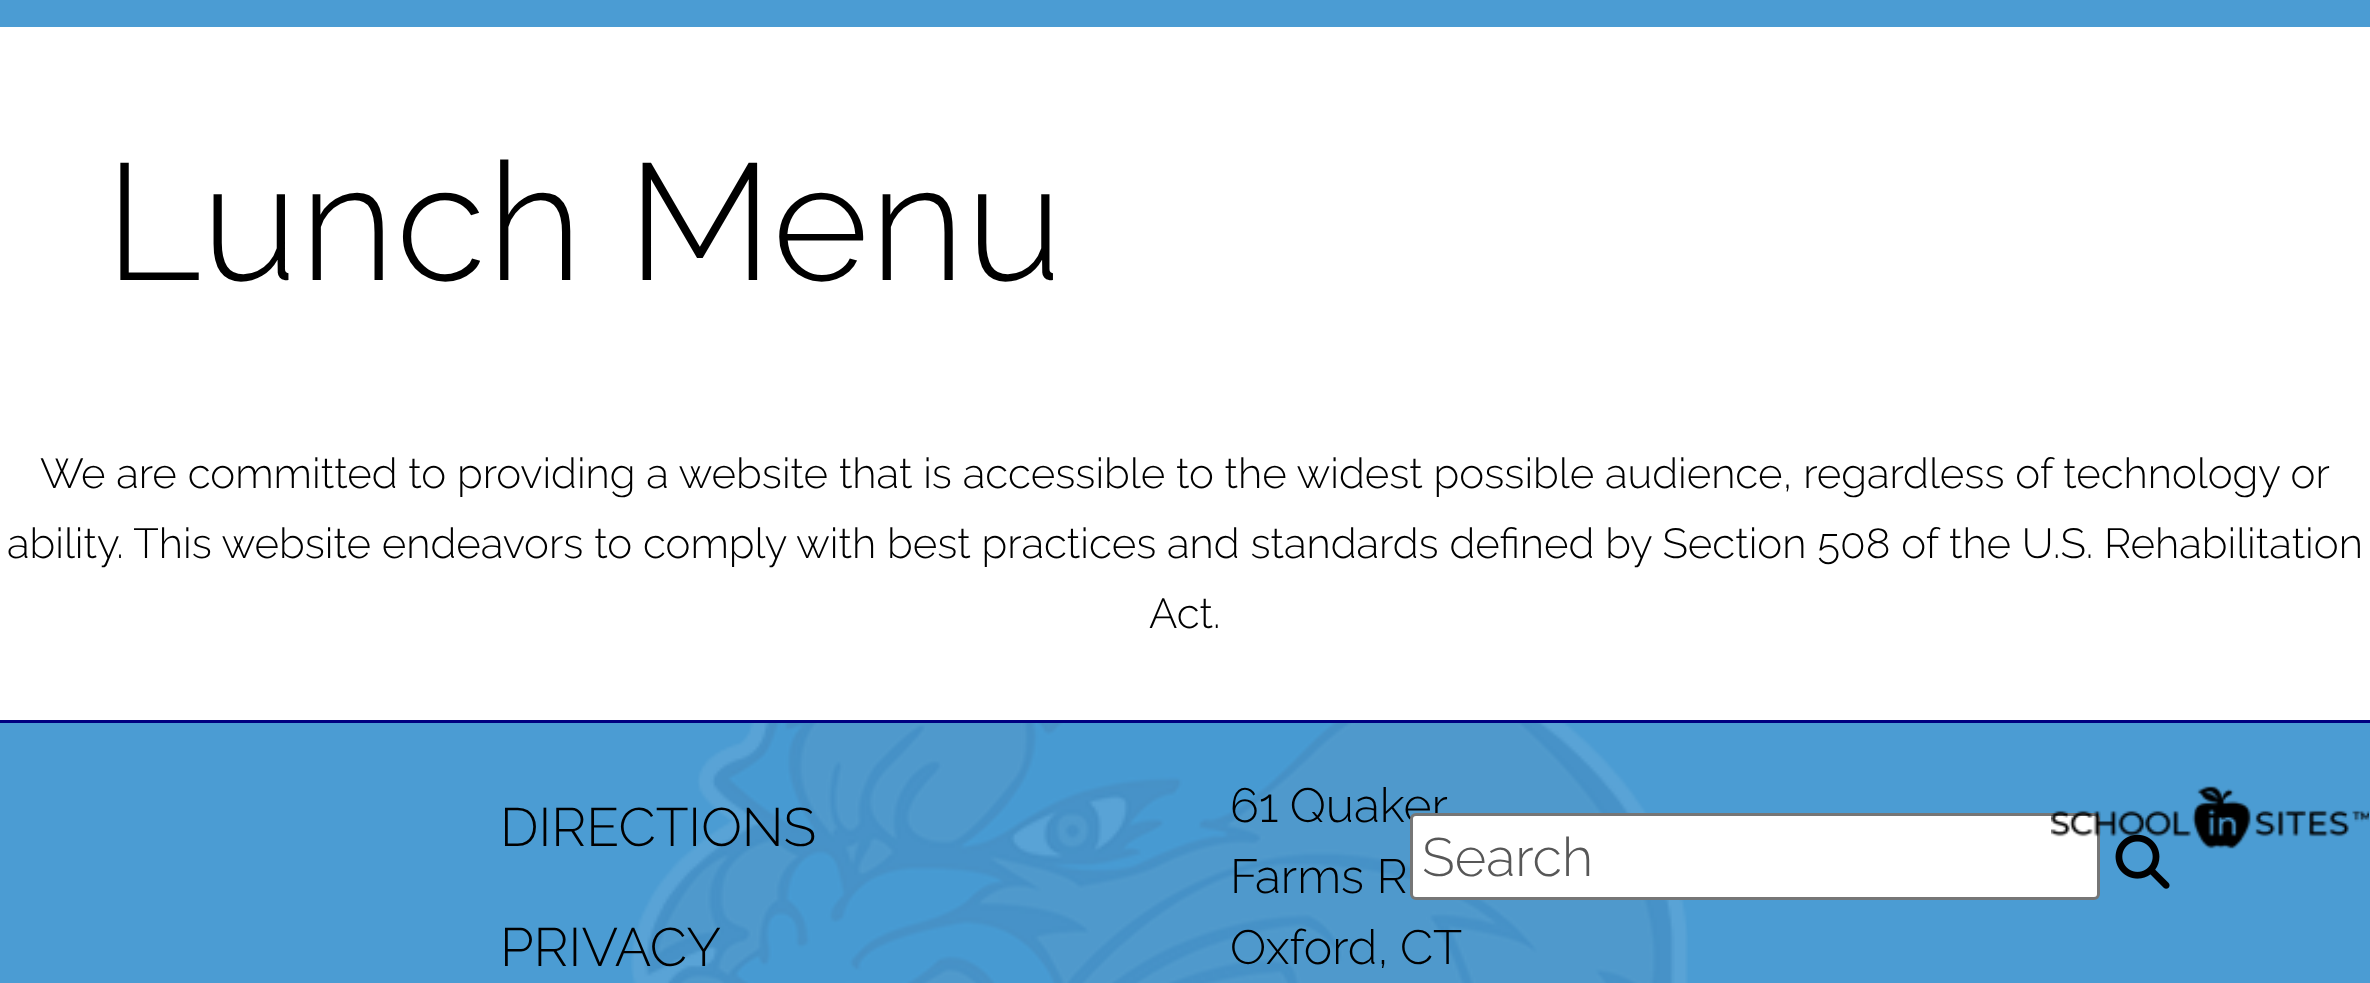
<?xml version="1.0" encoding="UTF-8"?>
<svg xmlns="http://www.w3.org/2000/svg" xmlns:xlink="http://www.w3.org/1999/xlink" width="2370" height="983">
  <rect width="100%" height="100%" fill="#ffffff" />
  <rect width="2370" height="27" fill="#4b9cd3" />
  <rect y="723" width="2370" height="260" fill="#4b9cd3" />
  <image x="631" y="723" width="1057" height="260" xlink:href="image1.png" />
  <rect y="720" width="2370" height="3" fill="#000080" />
  <image x="2115" y="834" width="55" height="55" xlink:href="image3.png" />
  <text x="105" y="280" style="font-family: Raleway; font-size: 165px; font-weight: 300; letter-spacing: 1.25px; fill: #000000">Lunch Menu</text>
  <text x="40" y="488" style="font-family: Raleway; font-size: 42px; font-weight: 300; fill: #000000">We are committed to providing a website that is accessible to the widest possible audience, regardless of technology or</text>
  <text x="7" y="558" style="font-family: Raleway; font-size: 42px; font-weight: 300; fill: #000000">ability. This website endeavors to comply with best practices and standards defined by Section 508 of the U.S. Rehabilitation</text>
  <text x="1149" y="628" style="font-family: Raleway; font-size: 42px; font-weight: 300; fill: #000000">Act.</text>
  <text x="500" y="846" style="font-family: Raleway; font-size: 54px; font-weight: 300; fill: #000000">DIRECTIONS</text>
  <text x="500" y="966" style="font-family: Raleway; font-size: 54px; font-weight: 300; fill: #000000">PRIVACY</text>
  <text x="1230" y="822" word-spacing="-1" style="font-family: Raleway; font-size: 48px; font-weight: 300; fill: #000000">61 Quaker</text>
  <text x="1230" y="893" style="font-family: Raleway; font-size: 48px; font-weight: 300; fill: #000000">Farms R</text>
  <text x="1230" y="964" word-spacing="-1" style="font-family: Raleway; font-size: 48px; font-weight: 300; fill: #000000">Oxford, CT</text>
  <rect x="1411.5" y="814.5" width="687" height="84" rx="4.5" fill="#ffffff" stroke="#767676" stroke-width="3" />
  <image x="2051" y="786" width="318" height="63" xlink:href="image2.png" />
  <text x="1422" y="876" style="font-family: Raleway; font-size: 54px; font-weight: 300; fill: #575757">Search</text>
</svg>
